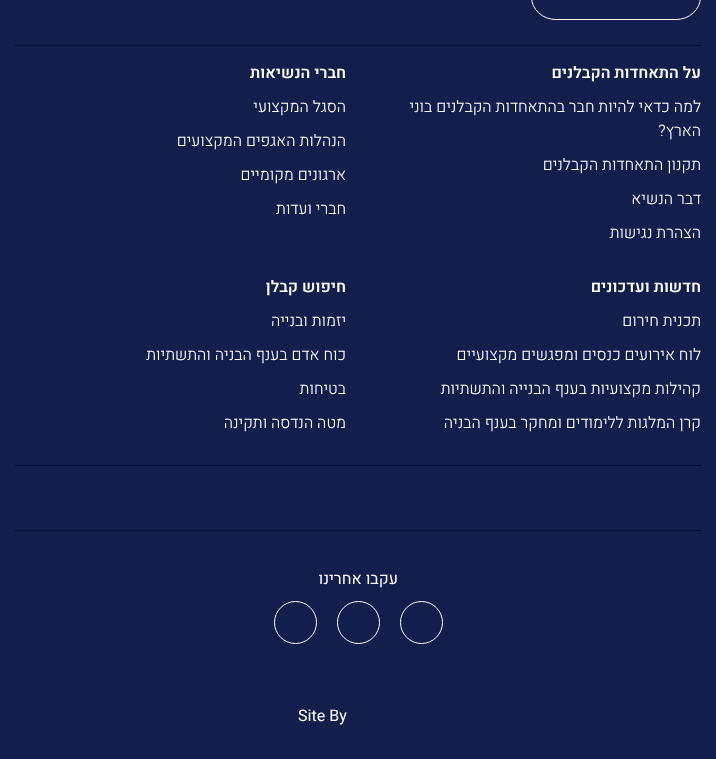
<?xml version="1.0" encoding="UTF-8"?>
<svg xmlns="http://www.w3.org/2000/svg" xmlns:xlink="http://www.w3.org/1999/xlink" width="716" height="759">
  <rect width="100%" height="100%" fill="#121f4d" />
  <rect x="15" y="45" width="686" height="1" fill="#000d3b" />
  <rect x="531.5" y="-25.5" width="169" height="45" rx="24.5" fill="none" stroke="#ffffff" />
  <rect x="15" y="465" width="686" height="1" fill="#000d3b" />
  <rect x="15" y="530" width="686" height="1" fill="#000d3b" />
  <circle cx="421.5" cy="622.5" r="21" fill="none" stroke="#ffffff" />
  <circle cx="358.5" cy="622.5" r="21" fill="none" stroke="#ffffff" />
  <circle cx="295.5" cy="622.5" r="21" fill="none" stroke="#ffffff" />
  <text x="701" y="78" style="font-family: Heebo; font-size: 16px; font-weight: 600; direction: rtl; fill: #ffffff">על התאחדות הקבלנים</text>
  <text x="701" y="112" style="font-family: Heebo; font-size: 16px; font-weight: 300; direction: rtl; fill: #ffffff">למה כדאי להיות חבר בהתאחדות הקבלנים בוני</text>
  <text x="701" y="136" style="font-family: Heebo; font-size: 16px; font-weight: 300; direction: rtl; fill: #ffffff">הארץ?</text>
  <text x="701" y="170" style="font-family: Heebo; font-size: 16px; font-weight: 300; direction: rtl; fill: #ffffff">תקנון התאחדות הקבלנים</text>
  <text x="701" y="204" style="font-family: Heebo; font-size: 16px; font-weight: 300; direction: rtl; fill: #ffffff">דבר הנשיא</text>
  <text x="701" y="238" style="font-family: Heebo; font-size: 16px; font-weight: 300; direction: rtl; fill: #ffffff">הצהרת נגישות</text>
  <text x="346" y="78" style="font-family: Heebo; font-size: 16px; font-weight: 600; direction: rtl; fill: #ffffff">חברי הנשיאות</text>
  <text x="346" y="112" style="font-family: Heebo; font-size: 16px; font-weight: 300; direction: rtl; fill: #ffffff">הסגל המקצועי</text>
  <text x="346" y="146" style="font-family: Heebo; font-size: 16px; font-weight: 300; direction: rtl; fill: #ffffff">הנהלות האגפים המקצועים</text>
  <text x="346" y="180" style="font-family: Heebo; font-size: 16px; font-weight: 300; direction: rtl; fill: #ffffff">ארגונים מקומיים</text>
  <text x="346" y="214" style="font-family: Heebo; font-size: 16px; font-weight: 300; direction: rtl; fill: #ffffff">חברי ועדות</text>
  <text x="701" y="292" style="font-family: Heebo; font-size: 16px; font-weight: 600; direction: rtl; fill: #ffffff">חדשות ועדכונים</text>
  <text x="701" y="326" style="font-family: Heebo; font-size: 16px; font-weight: 300; direction: rtl; fill: #ffffff">תכנית חירום</text>
  <text x="701" y="360" style="font-family: Heebo; font-size: 16px; font-weight: 300; direction: rtl; fill: #ffffff">לוח אירועים כנסים ומפגשים מקצועיים</text>
  <text x="701" y="394" style="font-family: Heebo; font-size: 16px; font-weight: 300; direction: rtl; fill: #ffffff">קהילות מקצועיות בענף הבנייה והתשתיות</text>
  <text x="701" y="428" style="font-family: Heebo; font-size: 16px; font-weight: 300; direction: rtl; fill: #ffffff">קרן המלגות ללימודים ומחקר בענף הבניה</text>
  <text x="346" y="292" style="font-family: Heebo; font-size: 16px; font-weight: 600; direction: rtl; fill: #ffffff">חיפוש קבלן</text>
  <text x="346" y="326" style="font-family: Heebo; font-size: 16px; font-weight: 300; direction: rtl; fill: #ffffff">יזמות ובנייה</text>
  <text x="346" y="360" style="font-family: Heebo; font-size: 16px; font-weight: 300; direction: rtl; fill: #ffffff">כוח אדם בענף הבניה והתשתיות</text>
  <text x="346" y="394" style="font-family: Heebo; font-size: 16px; font-weight: 300; direction: rtl; fill: #ffffff">בטיחות</text>
  <text x="346" y="428" style="font-family: Heebo; font-size: 16px; font-weight: 300; direction: rtl; fill: #ffffff">מטה הנדסה ותקינה</text>
  <text x="398" y="584" style="font-family: Heebo; font-size: 16px; direction: rtl; fill: #ffffff">עקבו אחרינו</text>
  <text x="298" y="721" style="font-family: Heebo; font-size: 16px; fill: #ffffff">Site By</text>
</svg>
